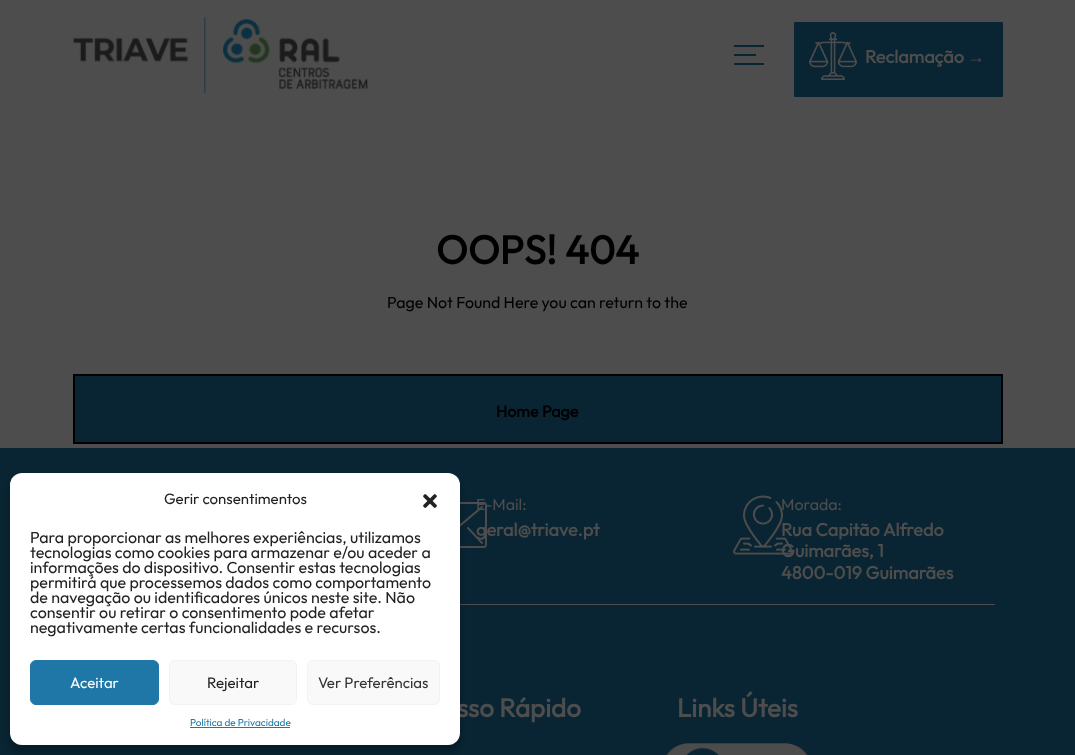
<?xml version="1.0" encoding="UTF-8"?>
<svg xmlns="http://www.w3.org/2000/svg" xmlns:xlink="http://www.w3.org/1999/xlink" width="1075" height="755">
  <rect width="100%" height="100%" fill="#4d4d4d" />
  <image x="73" y="17" width="295" height="76" xlink:href="image1.png" />
  <rect x="734" y="45" width="30" height="2" fill="#092432" />
  <rect x="734" y="54" width="22" height="2" fill="#092432" />
  <rect x="734" y="63" width="30" height="2" fill="#092432" />
  <rect x="794" y="22" width="209" height="75" rx="1" fill="#092432" />
  <image x="809" y="32" width="48" height="48" xlink:href="image2.png" />
  <rect x="74" y="375" width="928" height="68" fill="#092432" stroke="#000000" stroke-width="2" />
  <rect y="448" width="1075" height="307" fill="#092432" />
  <rect x="460" y="604" width="535" height="1" fill="#4d4d4d" />
  <image x="666" y="743" width="142" height="12" xlink:href="image6.png" />
  <text x="865" y="63" style="font-family: Outfit; font-size: 18px; font-weight: bold; fill: #4d4d4d">Reclamação</text>
  <text x="967" y="63" style="font-family: Liberation Serif; font-size: 18px; font-weight: bold; fill: #4d4d4d">→</text>
  <text x="436" y="264" style="font-family: Outfit; font-size: 40px; font-weight: bold; fill: #000000">OOPS! 404</text>
  <text x="387" y="308" style="font-family: Outfit; font-size: 16px; font-weight: 100; fill: #000000">Page Not Found Here you can return to the</text>
  <text x="496" y="417" style="font-family: Outfit; font-size: 16px; font-weight: bold; fill: #000000">Home Page</text>
  <text x="476" y="510" style="font-family: Outfit; font-size: 16px; font-weight: 100; fill: #4d4d4d">E-Mail:</text>
  <text x="476" y="536" style="font-family: Outfit; font-size: 18px; font-weight: bold; fill: #4d4d4d">geral@triave.pt</text>
  <image x="460" y="502" width="27" height="46" xlink:href="image4.png" />
  <rect x="10" y="479" width="450" height="272" rx="12" fill="#000000" fill-opacity="0.23" filter="blur(3px)" />
  <text x="781" y="510" style="font-family: Outfit; font-size: 16px; font-weight: 100; fill: #4d4d4d">Morada:</text>
  <text x="781" y="536" style="font-family: Outfit; font-size: 18px; font-weight: bold; fill: #4d4d4d">Rua Capitão Alfredo</text>
  <text x="781" y="557" style="font-family: Outfit; font-size: 18px; font-weight: bold; fill: #4d4d4d">Guimarães, 1</text>
  <image x="733" y="495" width="60" height="60" xlink:href="image5.png" />
  <text x="781" y="579" style="font-family: Outfit; font-size: 18px; font-weight: bold; fill: #4d4d4d">4800-019 Guimarães</text>
  <text x="457" y="717" style="font-family: Outfit; font-size: 26px; font-weight: bold; fill: #4d4d4d">sso Rápido</text>
  <rect x="10" y="473" width="450" height="272" rx="12" fill="#ffffff" />
  <text x="30" y="633" style="font-family: Outfit; font-size: 16px; font-weight: 100; fill: #222222">negativamente certas funcionalidades e recursos.</text>
  <text x="30" y="618" style="font-family: Outfit; font-size: 16px; font-weight: 100; fill: #222222">consentir ou retirar o consentimento pode afetar</text>
  <text x="30" y="603" style="font-family: Outfit; font-size: 16px; font-weight: 100; fill: #222222">de navegação ou identificadores únicos neste site. Não</text>
  <text x="30" y="588" style="font-family: Outfit; font-size: 16px; font-weight: 100; fill: #222222">permitirá que processemos dados como comportamento</text>
  <text x="30" y="573" style="font-family: Outfit; font-size: 16px; font-weight: 100; fill: #222222">informações do dispositivo. Consentir estas tecnologias</text>
  <text x="30" y="558" style="font-family: Outfit; font-size: 16px; font-weight: 100; fill: #222222">tecnologias como cookies para armazenar e/ou aceder a</text>
  <text x="30" y="543" style="font-family: Outfit; font-size: 16px; font-weight: 100; fill: #222222">Para proporcionar as melhores experiências, utilizamos</text>
  <image x="423" y="494" width="14" height="14" xlink:href="image3.png" />
  <text x="190" y="726" style="font-family: Outfit; font-size: 10px; font-weight: 100; fill: #1f77a7">Política de Privacidade</text>
  <rect x="190" y="727" width="100" height="1" fill="#1f77a7" />
  <rect x="307.5" y="660.5" width="132" height="44" rx="5.5" fill="#f9f9f9" stroke="#f2f2f2" />
  <text x="318" y="688" style="font-family: Outfit; font-size: 15px; font-weight: 100; fill: #333333">Ver Preferências</text>
  <rect x="169.5" y="660.5" width="127" height="44" rx="5.5" fill="#f9f9f9" stroke="#f2f2f2" />
  <text x="207" y="688" style="font-family: Outfit; font-size: 15px; font-weight: 100; fill: #222222">Rejeitar</text>
  <rect x="30.5" y="660.5" width="128" height="44" rx="5.5" fill="#1f77a7" stroke="#1f77a7" />
  <text x="70" y="688" style="font-family: Outfit; font-size: 15px; font-weight: 100; fill: #ffffff">Aceitar</text>
  <text x="164" y="504" style="font-family: Outfit; font-size: 15px; font-weight: 100; fill: #222222">Gerir consentimentos</text>
  <text x="677" y="717" style="font-family: Outfit; font-size: 26px; font-weight: bold; fill: #4d4d4d">Links Úteis</text>
</svg>
